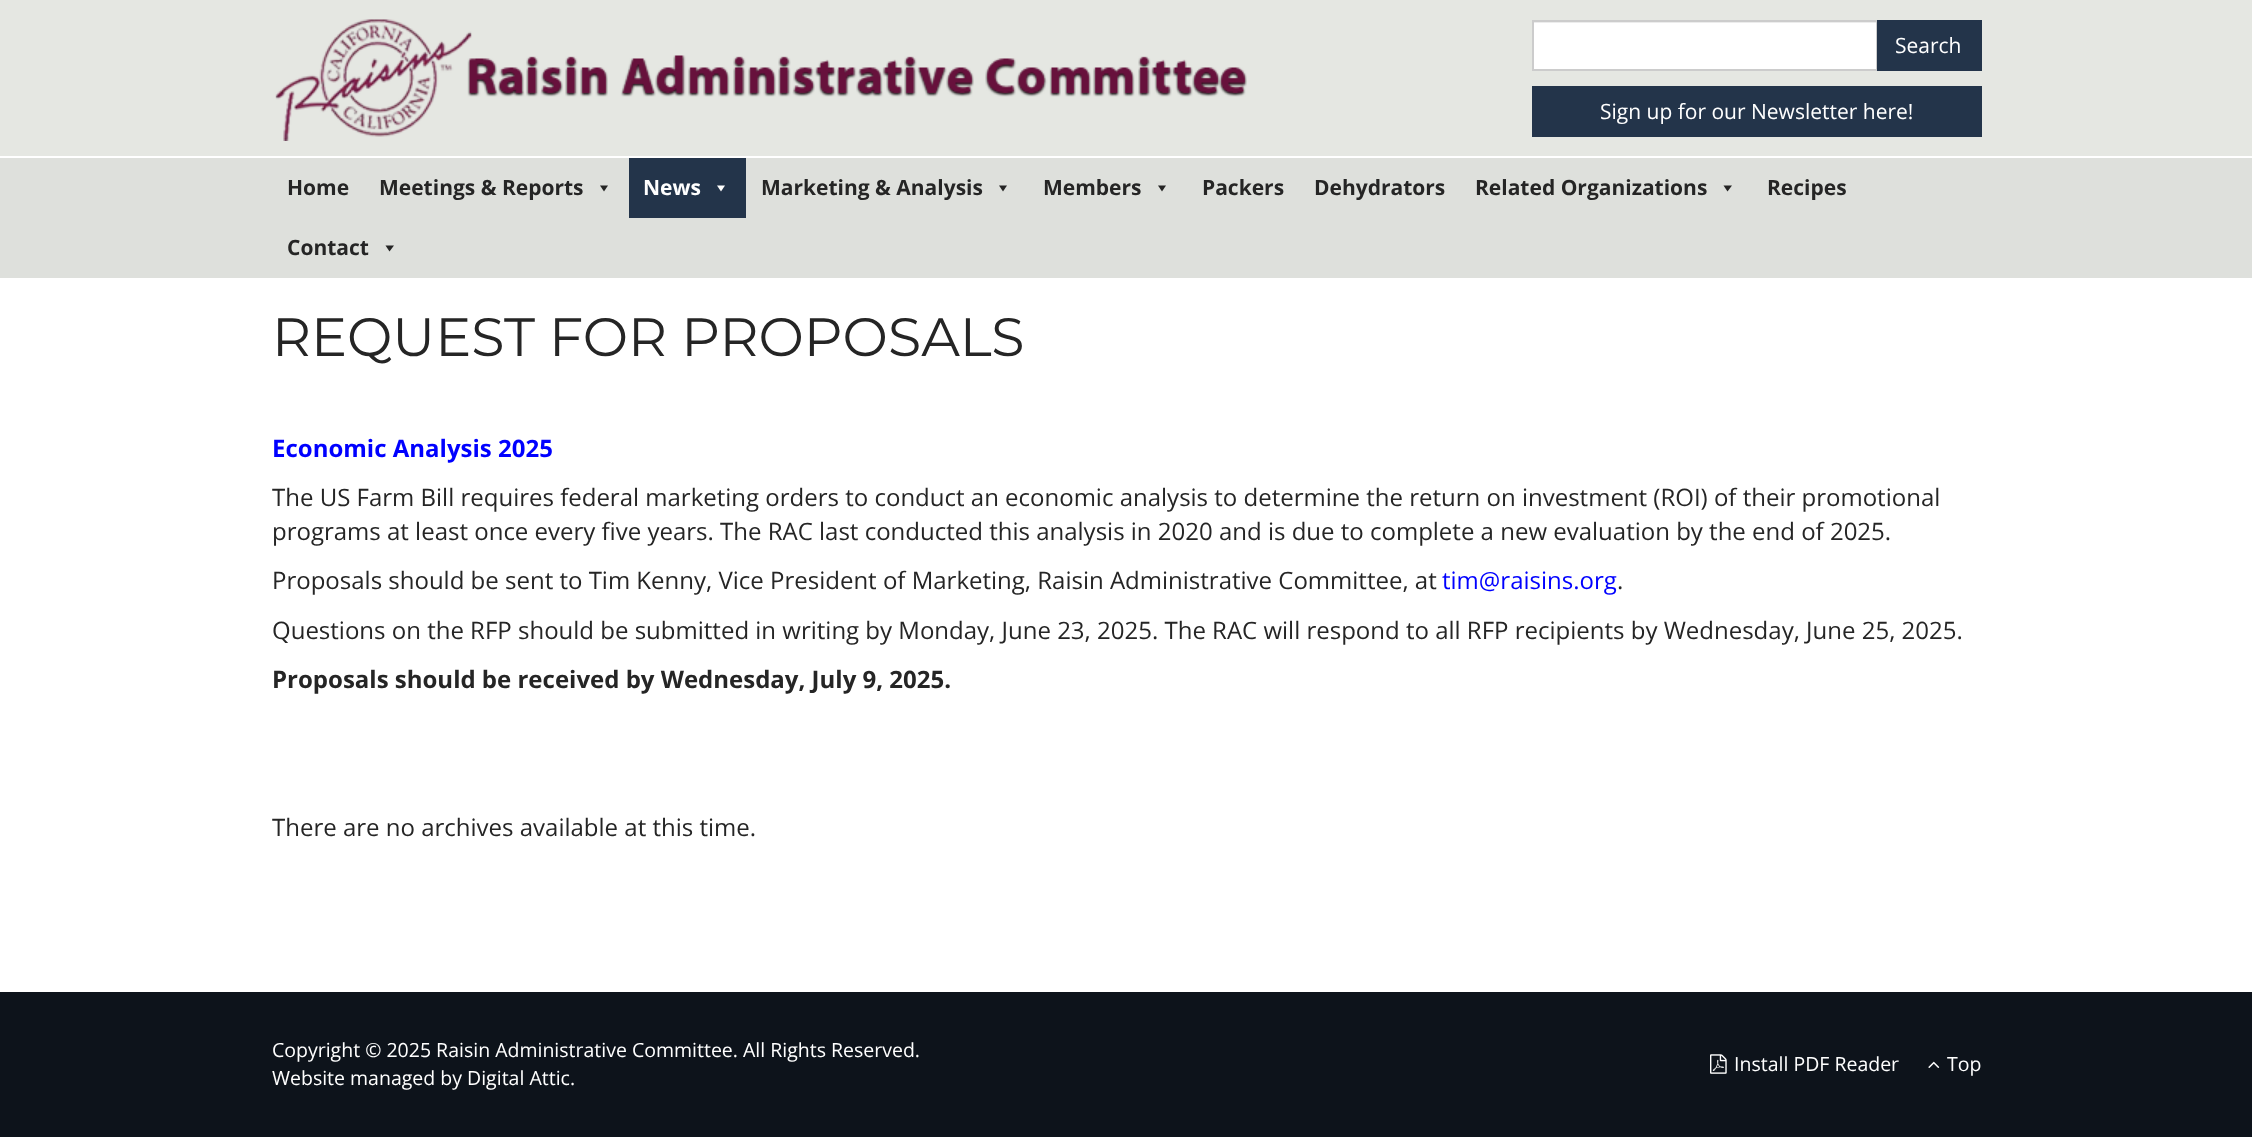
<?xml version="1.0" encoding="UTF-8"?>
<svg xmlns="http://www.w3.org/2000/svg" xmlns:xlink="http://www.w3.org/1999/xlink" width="2252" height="1137">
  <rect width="100%" height="100%" fill="#ffffff" />
  <rect width="2252" height="156" fill="#e5e7e2" />
  <image x="275" y="19" width="972" height="122" xlink:href="image1.png" />
  <rect x="1534" y="23" width="342" height="46" fill="#ffffff" />
  <rect x="1533" y="22" width="344" height="1" fill="#ececec" />
  <rect x="1533" y="21" width="344" height="49" fill="none" stroke="#cccccc" stroke-width="2" />
  <rect x="1877" y="20" width="105" height="51" fill="#23344a" />
  <rect x="1532" y="86" width="450" height="51" fill="#23344a" />
  <rect y="158" width="2252" height="120" fill="#dee0dc" />
  <path d="M 608 185.5 l -4 6 l -4 -6 z" fill="#252525" />
  <rect x="629" y="158" width="117" height="60" fill="#23344a" />
  <path d="M 725 185.5 l -4 6 l -4 -6 z" fill="#ffffff" />
  <path d="M 1007 185.5 l -4 6 l -4 -6 z" fill="#252525" />
  <path d="M 1166 185.5 l -4 6 l -4 -6 z" fill="#252525" />
  <path d="M 1732 185.5 l -4.5 6 l -4 -6 z" fill="#252525" />
  <path d="M 394 245.5 l -4.5 6 l -4 -6 z" fill="#252525" />
  <rect y="992" width="2252" height="145" fill="#0d131b" />
  <image x="1710" y="1054" width="17" height="20" xlink:href="image2.png" />
  <image x="1928" y="1061" width="12" height="7" xlink:href="image3.png" />
  <text x="1895" y="53" style="font-family: Open Sans; font-size: 21px; fill: #ffffff">Search</text>
  <text x="1600" y="119" style="font-family: Open Sans; font-size: 21px; fill: #ffffff">Sign up for our Newsletter here!</text>
  <text x="287" y="195" style="font-family: Open Sans; font-size: 21px; font-weight: bold; fill: #252525">Home</text>
  <text x="379" y="195" style="font-family: Open Sans; font-size: 21px; font-weight: bold; fill: #252525">Meetings &amp; Reports</text>
  <text x="643" y="195" style="font-family: Open Sans; font-size: 21px; font-weight: bold; fill: #ffffff">News</text>
  <text x="761" y="195" style="font-family: Open Sans; font-size: 21px; font-weight: bold; fill: #252525">Marketing &amp; Analysis</text>
  <text x="1043" y="195" style="font-family: Open Sans; font-size: 21px; font-weight: bold; fill: #252525">Members</text>
  <text x="1202" y="195" style="font-family: Open Sans; font-size: 21px; font-weight: bold; fill: #252525">Packers</text>
  <text x="1314" y="195" style="font-family: Open Sans; font-size: 21px; font-weight: bold; fill: #252525">Dehydrators</text>
  <text x="1475" y="195" style="font-family: Open Sans; font-size: 21px; font-weight: bold; fill: #252525">Related Organizations</text>
  <text x="1767" y="195" style="font-family: Open Sans; font-size: 21px; font-weight: bold; fill: #252525">Recipes</text>
  <text x="287" y="255" style="font-family: Open Sans; font-size: 21px; font-weight: bold; fill: #252525">Contact</text>
  <text x="272" y="356" style="font-family: Montserrat; font-size: 54px; fill: #252525">REQUEST FOR PROPOSALS</text>
  <text x="272" y="457" style="font-family: Open Sans; font-size: 24px; font-weight: bold; fill: #0000ff">Economic Analysis 2025</text>
  <text x="272" y="506" style="font-family: Open Sans; font-size: 24px; fill: #252525">The US Farm Bill requires federal marketing orders to conduct an economic analysis to determine the return on investment (ROI) of their promotional</text>
  <text x="272" y="540" style="font-family: Open Sans; font-size: 24px; fill: #252525">programs at least once every five years. The RAC last conducted this analysis in 2020 and is due to complete a new evaluation by the end of 2025.</text>
  <text x="272" y="589" style="font-family: Open Sans; font-size: 24px; fill: #252525">Proposals should be sent to Tim Kenny, Vice President of Marketing, Raisin Administrative Committee, at</text>
  <text x="1442" y="589" style="font-family: Open Sans; font-size: 24px; fill: #0000ff">tim@raisins.org</text>
  <text x="1617" y="589" style="font-family: Open Sans; font-size: 24px; fill: #252525">.</text>
  <text x="272" y="639" style="font-family: Open Sans; font-size: 24px; fill: #252525">Questions on the RFP should be submitted in writing by Monday, June 23, 2025. The RAC will respond to all RFP recipients by Wednesday, June 25, 2025.</text>
  <text x="272" y="688" style="font-family: Open Sans; font-size: 24px; font-weight: bold; fill: #252525">Proposals should be received by Wednesday, July 9, 2025.</text>
  <text x="272" y="836" style="font-family: Open Sans; font-size: 24px; fill: #252525">There are no archives available at this time.</text>
  <text x="272" y="1057" style="font-family: Open Sans; font-size: 19.5px; fill: #ffffff">Copyright © 2025 Raisin Administrative Committee. All Rights Reserved.</text>
  <text x="272" y="1085" style="font-family: Open Sans; font-size: 19.5px; fill: #ffffff">Website managed by Digital Attic.</text>
  <text x="1734" y="1071" style="font-family: Open Sans; font-size: 19.5px; fill: #ffffff">Install PDF Reader</text>
  <text x="1947" y="1071" style="font-family: Open Sans; font-size: 19.5px; fill: #ffffff">Top</text>
</svg>
